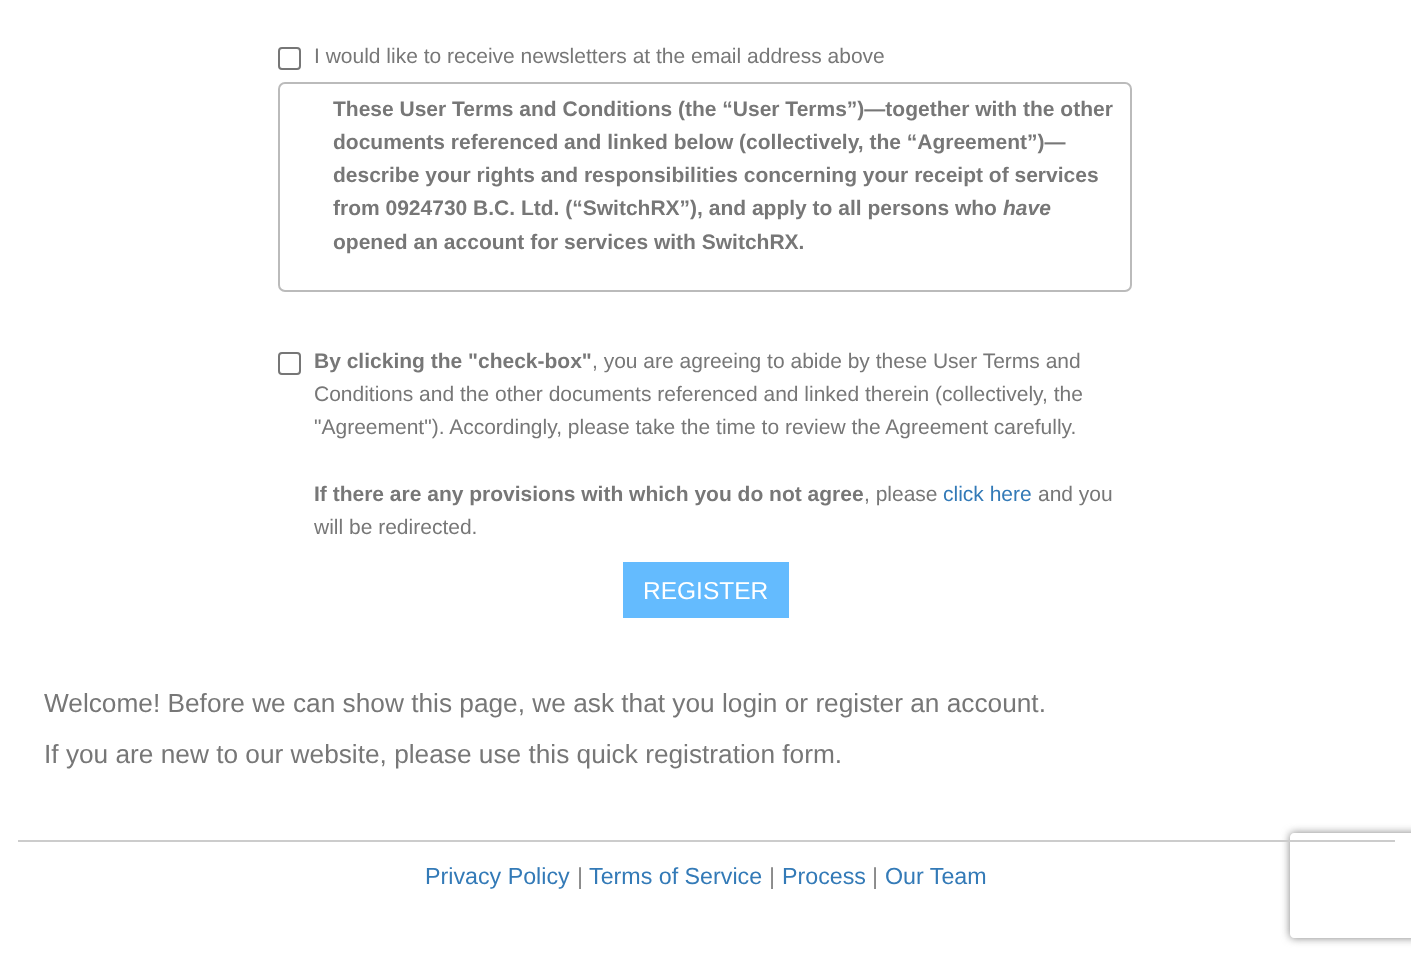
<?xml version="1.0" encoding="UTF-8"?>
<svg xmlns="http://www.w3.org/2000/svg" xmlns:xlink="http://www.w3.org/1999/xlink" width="1411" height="962">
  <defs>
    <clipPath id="clip1"><path d="M 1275 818 h 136 v 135 h -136 z m 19 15 h 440 c 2 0 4 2 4 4 v 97 c 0 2 -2 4 -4 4 h -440 c -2 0 -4 -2 -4 -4 v -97 c 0 -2 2 -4 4 -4 z" clip-rule="evenodd" /></clipPath>
  </defs>
  <rect width="100%" height="100%" fill="#ffffff" />
  <rect x="279" y="48" width="21" height="21" rx="3" fill="none" stroke="#767676" stroke-width="2" />
  <rect x="279" y="83" width="852" height="208" rx="6" fill="none" stroke="#bbbbbb" stroke-width="2" />
  <rect x="279" y="353" width="21" height="21" rx="3" fill="none" stroke="#767676" stroke-width="2" />
  <rect x="623" y="562" width="166" height="56" fill="#64bbfe" />
  <g clip-path="url(#clip1)">
    <rect x="1290" y="833" width="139" height="105" rx="4" fill="#808080" filter="blur(4.5px)" />
  </g>
  <rect x="18" y="840" width="1377" height="2" fill="#cccccc" />
  <text x="314" y="63" style="font-family: Liberation Sans; font-size: 21px; fill: #777777">I would like to receive newsletters at the email address above</text>
  <text x="333" y="116" style="font-family: Liberation Sans; font-size: 21px; font-weight: bold; fill: #777777">These User Terms and Conditions (the “User Terms”)—together with the other</text>
  <text x="333" y="149" style="font-family: Liberation Sans; font-size: 21px; font-weight: bold; fill: #777777">documents referenced and linked below (collectively, the “Agreement”)—</text>
  <text x="333" y="182" style="font-family: Liberation Sans; font-size: 21px; font-weight: bold; fill: #777777">describe your rights and responsibilities concerning your receipt of services</text>
  <text x="333" y="215" style="font-family: Liberation Sans; font-size: 21px; font-weight: bold; fill: #777777">from 0924730 B.C. Ltd. (“SwitchRX”), and apply to all persons who</text>
  <text x="1003" y="215" style="font-family: Liberation Sans; font-size: 21px; font-weight: bold; font-style: italic; fill: #777777">have</text>
  <text x="333" y="249" style="font-family: Liberation Sans; font-size: 21px; font-weight: bold; fill: #777777">opened an account for services with SwitchRX.</text>
  <text x="314" y="368" style="font-family: Liberation Sans; font-size: 21px; font-weight: bold; fill: #777777">By clicking the "check-box"</text>
  <text x="592" y="368" style="font-family: Liberation Sans; font-size: 21px; fill: #777777">, you are agreeing to abide by these User Terms and</text>
  <text x="314" y="401" style="font-family: Liberation Sans; font-size: 21px; fill: #777777">Conditions and the other documents referenced and linked therein (collectively, the</text>
  <text x="314" y="434" style="font-family: Liberation Sans; font-size: 21px; fill: #777777">"Agreement"). Accordingly, please take the time to review the Agreement carefully.</text>
  <text x="314" y="501" style="font-family: Liberation Sans; font-size: 21px; font-weight: bold; fill: #777777">If there are any provisions with which you do not agree</text>
  <text x="864" y="501" style="font-family: Liberation Sans; font-size: 21px; fill: #777777">, please</text>
  <text x="943" y="501" style="font-family: Liberation Sans; font-size: 21px; fill: #337ab7">click here</text>
  <text x="1038" y="501" style="font-family: Liberation Sans; font-size: 21px; fill: #777777">and you</text>
  <text x="314" y="534" style="font-family: Liberation Sans; font-size: 21px; fill: #777777">will be redirected.</text>
  <text x="643" y="599" style="font-family: Liberation Sans; font-size: 24.5px; fill: #ffffff">REGISTER</text>
  <text x="44" y="712" style="font-family: Liberation Sans; font-size: 26.25px; fill: #777777">Welcome! Before we can show this page, we ask that you login or register an account.</text>
  <text x="44" y="763" style="font-family: Liberation Sans; font-size: 26.25px; fill: #777777">If you are new to our website, please use this quick registration form.</text>
  <text x="425" y="884" style="font-family: Liberation Sans; font-size: 23.25px; fill: #337ab7">Privacy Policy</text>
  <text x="577" y="884" style="font-family: Liberation Sans; font-size: 23.25px; fill: #888888">|</text>
  <text x="589" y="884" style="font-family: Liberation Sans; font-size: 23.25px; fill: #337ab7">Terms of Service</text>
  <text x="769" y="884" style="font-family: Liberation Sans; font-size: 23.25px; fill: #888888">|</text>
  <text x="782" y="884" style="font-family: Liberation Sans; font-size: 23.25px; fill: #337ab7">Process</text>
  <text x="872" y="884" style="font-family: Liberation Sans; font-size: 23.25px; fill: #888888">|</text>
  <text x="885" y="884" style="font-family: Liberation Sans; font-size: 23.25px; fill: #337ab7">Our Team</text>
</svg>
